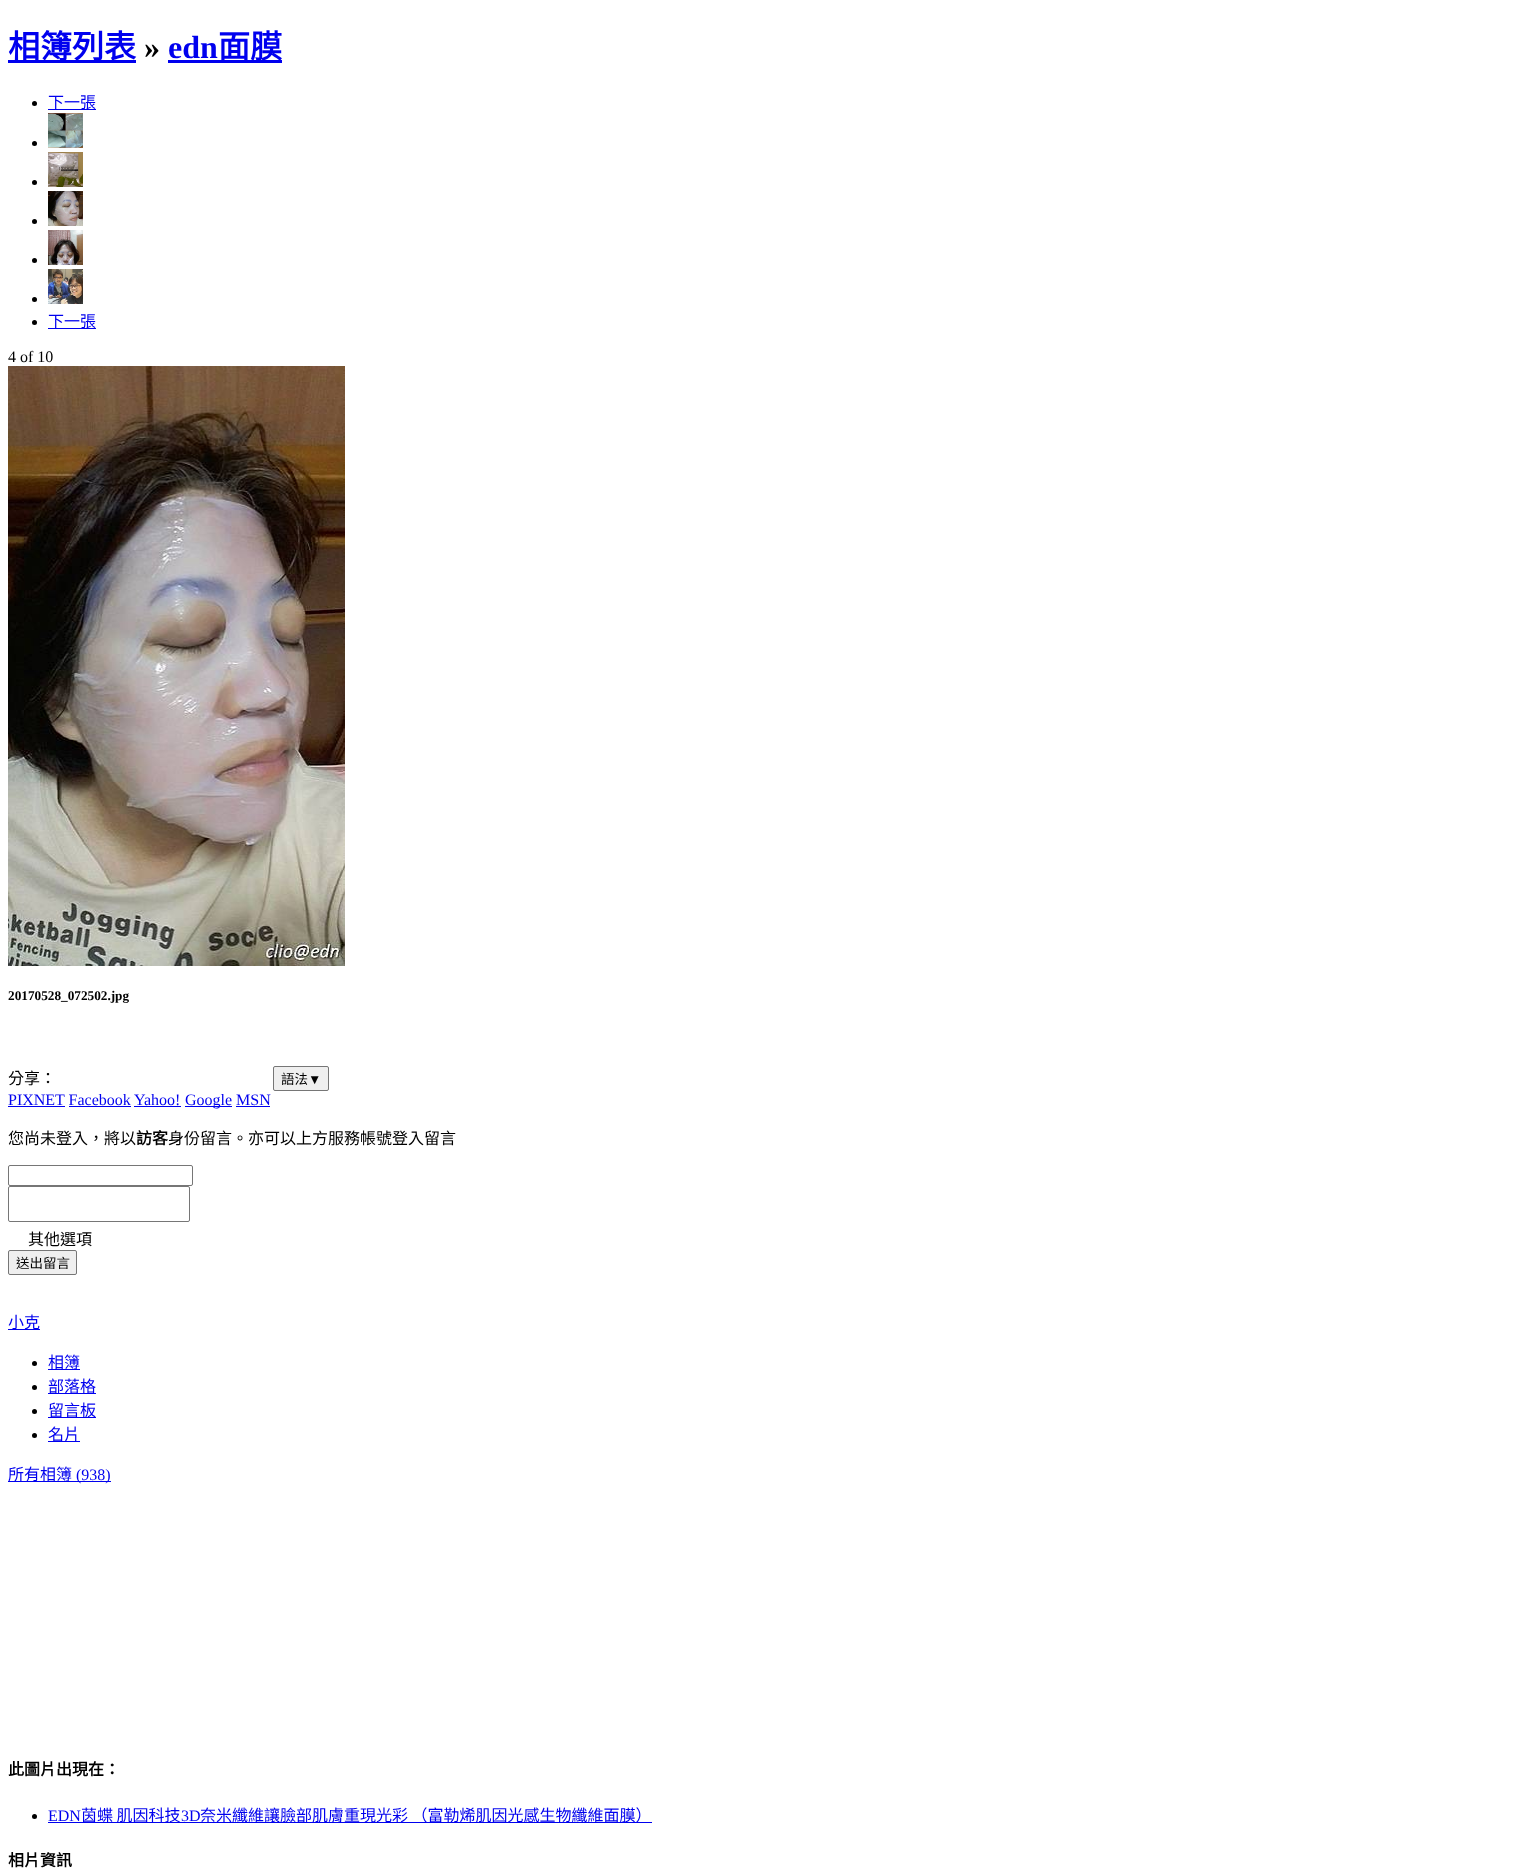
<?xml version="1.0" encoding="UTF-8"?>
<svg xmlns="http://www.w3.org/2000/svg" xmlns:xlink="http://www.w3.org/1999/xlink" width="1516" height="1870">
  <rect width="100%" height="100%" fill="#ffffff" />
  <rect x="8" y="60" width="128" height="3" fill="#0000ee" />
  <rect x="168" y="60" width="114" height="3" fill="#0000ee" />
  <circle cx="34.5" cy="103.5" r="2.5" fill="#000000" />
  <rect x="48" y="109" width="48" height="1" fill="#0000ee" />
  <circle cx="34.5" cy="143.5" r="2.5" fill="#000000" />
  <image x="48" y="113" width="35" height="35" xlink:href="image1.png" />
  <circle cx="34.5" cy="182.5" r="2.5" fill="#000000" />
  <image x="48" y="152" width="35" height="35" xlink:href="image2.png" />
  <circle cx="34.5" cy="221.5" r="2.5" fill="#000000" />
  <image x="48" y="191" width="35" height="35" xlink:href="image3.png" />
  <circle cx="34.5" cy="260.5" r="2.5" fill="#000000" />
  <image x="48" y="230" width="35" height="35" xlink:href="image4.png" />
  <circle cx="34.5" cy="299.5" r="2.5" fill="#000000" />
  <image x="48" y="269" width="35" height="35" xlink:href="image5.png" />
  <circle cx="34.5" cy="322.5" r="2.5" fill="#000000" />
  <rect x="48" y="328" width="48" height="1" fill="#0000ee" />
  <image x="8" y="366" width="337" height="600" xlink:href="image6.png" />
  <rect x="273.5" y="1066.5" width="55" height="24" rx="1.5" fill="#efefef" stroke="#767676" />
  <rect x="8" y="1106" width="57" height="1" fill="#0000ee" />
  <rect x="134" y="1106" width="47" height="1" fill="#0000ee" />
  <rect x="185" y="1106" width="47" height="1" fill="#0000ee" />
  <rect x="69" y="1106" width="62" height="1" fill="#0000ee" />
  <rect x="236" y="1106" width="34" height="1" fill="#0000ee" />
  <rect x="8.5" y="1165.5" width="184" height="20" rx="1.5" fill="none" stroke="#767676" />
  <rect x="8.5" y="1186.5" width="181" height="35" rx="1.5" fill="none" stroke="#767676" />
  <rect x="8.5" y="1250.5" width="68" height="24" rx="1.5" fill="#efefef" stroke="#767676" />
  <rect x="8" y="1329" width="32" height="1" fill="#0000ee" />
  <circle cx="34.5" cy="1363.5" r="2.5" fill="#000000" />
  <rect x="48" y="1369" width="32" height="1" fill="#0000ee" />
  <circle cx="34.5" cy="1387.5" r="2.5" fill="#000000" />
  <rect x="48" y="1393" width="48" height="1" fill="#0000ee" />
  <circle cx="34.5" cy="1411.5" r="2.5" fill="#000000" />
  <rect x="48" y="1417" width="48" height="1" fill="#0000ee" />
  <circle cx="34.5" cy="1435.5" r="2.5" fill="#000000" />
  <rect x="48" y="1441" width="32" height="1" fill="#0000ee" />
  <rect x="8" y="1481" width="103" height="1" fill="#0000ee" />
  <circle cx="34.5" cy="1816.5" r="2.5" fill="#000000" />
  <rect x="48" y="1822" width="604" height="1" fill="#0000ee" />
  <text x="8" y="58" style="font-family: Noto Sans CJK TC; font-size: 32px; font-weight: bold; fill: #0000ee">相簿列表</text>
  <text x="144" y="58" style="font-family: Liberation Serif; font-size: 32px; font-weight: bold; fill: #000000">»</text>
  <text x="168" y="58" style="font-family: Liberation Serif; font-size: 32px; font-weight: bold; fill: #0000ee">edn</text>
  <text x="218" y="58" style="font-family: Noto Sans CJK TC; font-size: 32px; font-weight: bold; fill: #0000ee">面膜</text>
  <text x="48" y="108" style="font-family: Noto Sans CJK TC; font-size: 16px; fill: #0000ee">下一張</text>
  <text x="48" y="327" style="font-family: Noto Sans CJK TC; font-size: 16px; fill: #0000ee">下一張</text>
  <text x="8" y="362" style="font-family: Liberation Serif; font-size: 16px; fill: #000000">4 of 10</text>
  <text x="8" y="1000" style="font-family: Liberation Serif; font-size: 13.25px; font-weight: bold; fill: #000000">20170528_072502.jpg</text>
  <text x="8" y="1084" style="font-family: Noto Sans CJK TC; font-size: 16px; fill: #000000">分享：</text>
  <text x="281" y="1084" style="font-family: Noto Sans CJK TC; font-size: 13.5px; fill: #000000">語法</text>
  <text x="308" y="1084" style="font-family: Liberation Sans; font-size: 13.5px; fill: #000000">▼</text>
  <text x="8" y="1105" style="font-family: Liberation Serif; font-size: 16px; fill: #0000ee">PIXNET Facebook</text>
  <text x="134" y="1105" style="font-family: Liberation Serif; font-size: 16px; fill: #0000ee">Yahoo!</text>
  <text x="185" y="1105" style="font-family: Liberation Serif; font-size: 16px; fill: #0000ee">Google MSN</text>
  <text x="8" y="1144" style="font-family: Noto Sans CJK TC; font-size: 16px; fill: #000000">您尚未登入，將以</text>
  <text x="136" y="1144" style="font-family: Noto Sans CJK TC; font-size: 16px; font-weight: bold; fill: #000000">訪客</text>
  <text x="168" y="1144" style="font-family: Noto Sans CJK TC; font-size: 16px; fill: #000000">身份留言。亦可以上方服務帳號登入留言</text>
  <text x="28" y="1245" style="font-family: Noto Sans CJK TC; font-size: 16px; fill: #000000">其他選項</text>
  <text x="16" y="1268" style="font-family: Noto Sans CJK TC; font-size: 13.5px; fill: #000000">送出留言</text>
  <text x="8" y="1328" style="font-family: Noto Sans CJK TC; font-size: 16px; fill: #0000ee">小克</text>
  <text x="48" y="1368" style="font-family: Noto Sans CJK TC; font-size: 16px; fill: #0000ee">相簿</text>
  <text x="48" y="1392" style="font-family: Noto Sans CJK TC; font-size: 16px; fill: #0000ee">部落格</text>
  <text x="48" y="1416" style="font-family: Noto Sans CJK TC; font-size: 16px; fill: #0000ee">留言板</text>
  <text x="48" y="1440" style="font-family: Noto Sans CJK TC; font-size: 16px; fill: #0000ee">名片</text>
  <text x="8" y="1480" style="font-family: Noto Sans CJK TC; font-size: 16px; fill: #0000ee">所有相簿</text>
  <text x="76" y="1480" style="font-family: Liberation Serif; font-size: 16px; fill: #0000ee">(938)</text>
  <text x="8" y="1775" style="font-family: Noto Sans CJK TC; font-size: 16px; font-weight: bold; fill: #000000">此圖片出現在：</text>
  <text x="48" y="1821" style="font-family: Liberation Serif; font-size: 16px; fill: #0000ee">EDN</text>
  <text x="81" y="1821" style="font-family: Noto Sans CJK TC; font-size: 16px; fill: #0000ee">茵蝶 肌因科技</text>
  <text x="181" y="1821" style="font-family: Liberation Serif; font-size: 16px; fill: #0000ee">3D</text>
  <text x="200" y="1821" style="font-family: Noto Sans CJK TC; font-size: 16px; fill: #0000ee">奈米纖維讓臉部肌膚重現光彩 （富勒烯肌因光感生物纖維面膜）</text>
  <text x="8" y="1866" style="font-family: Noto Sans CJK TC; font-size: 16px; font-weight: bold; fill: #000000">相片資訊</text>
</svg>
